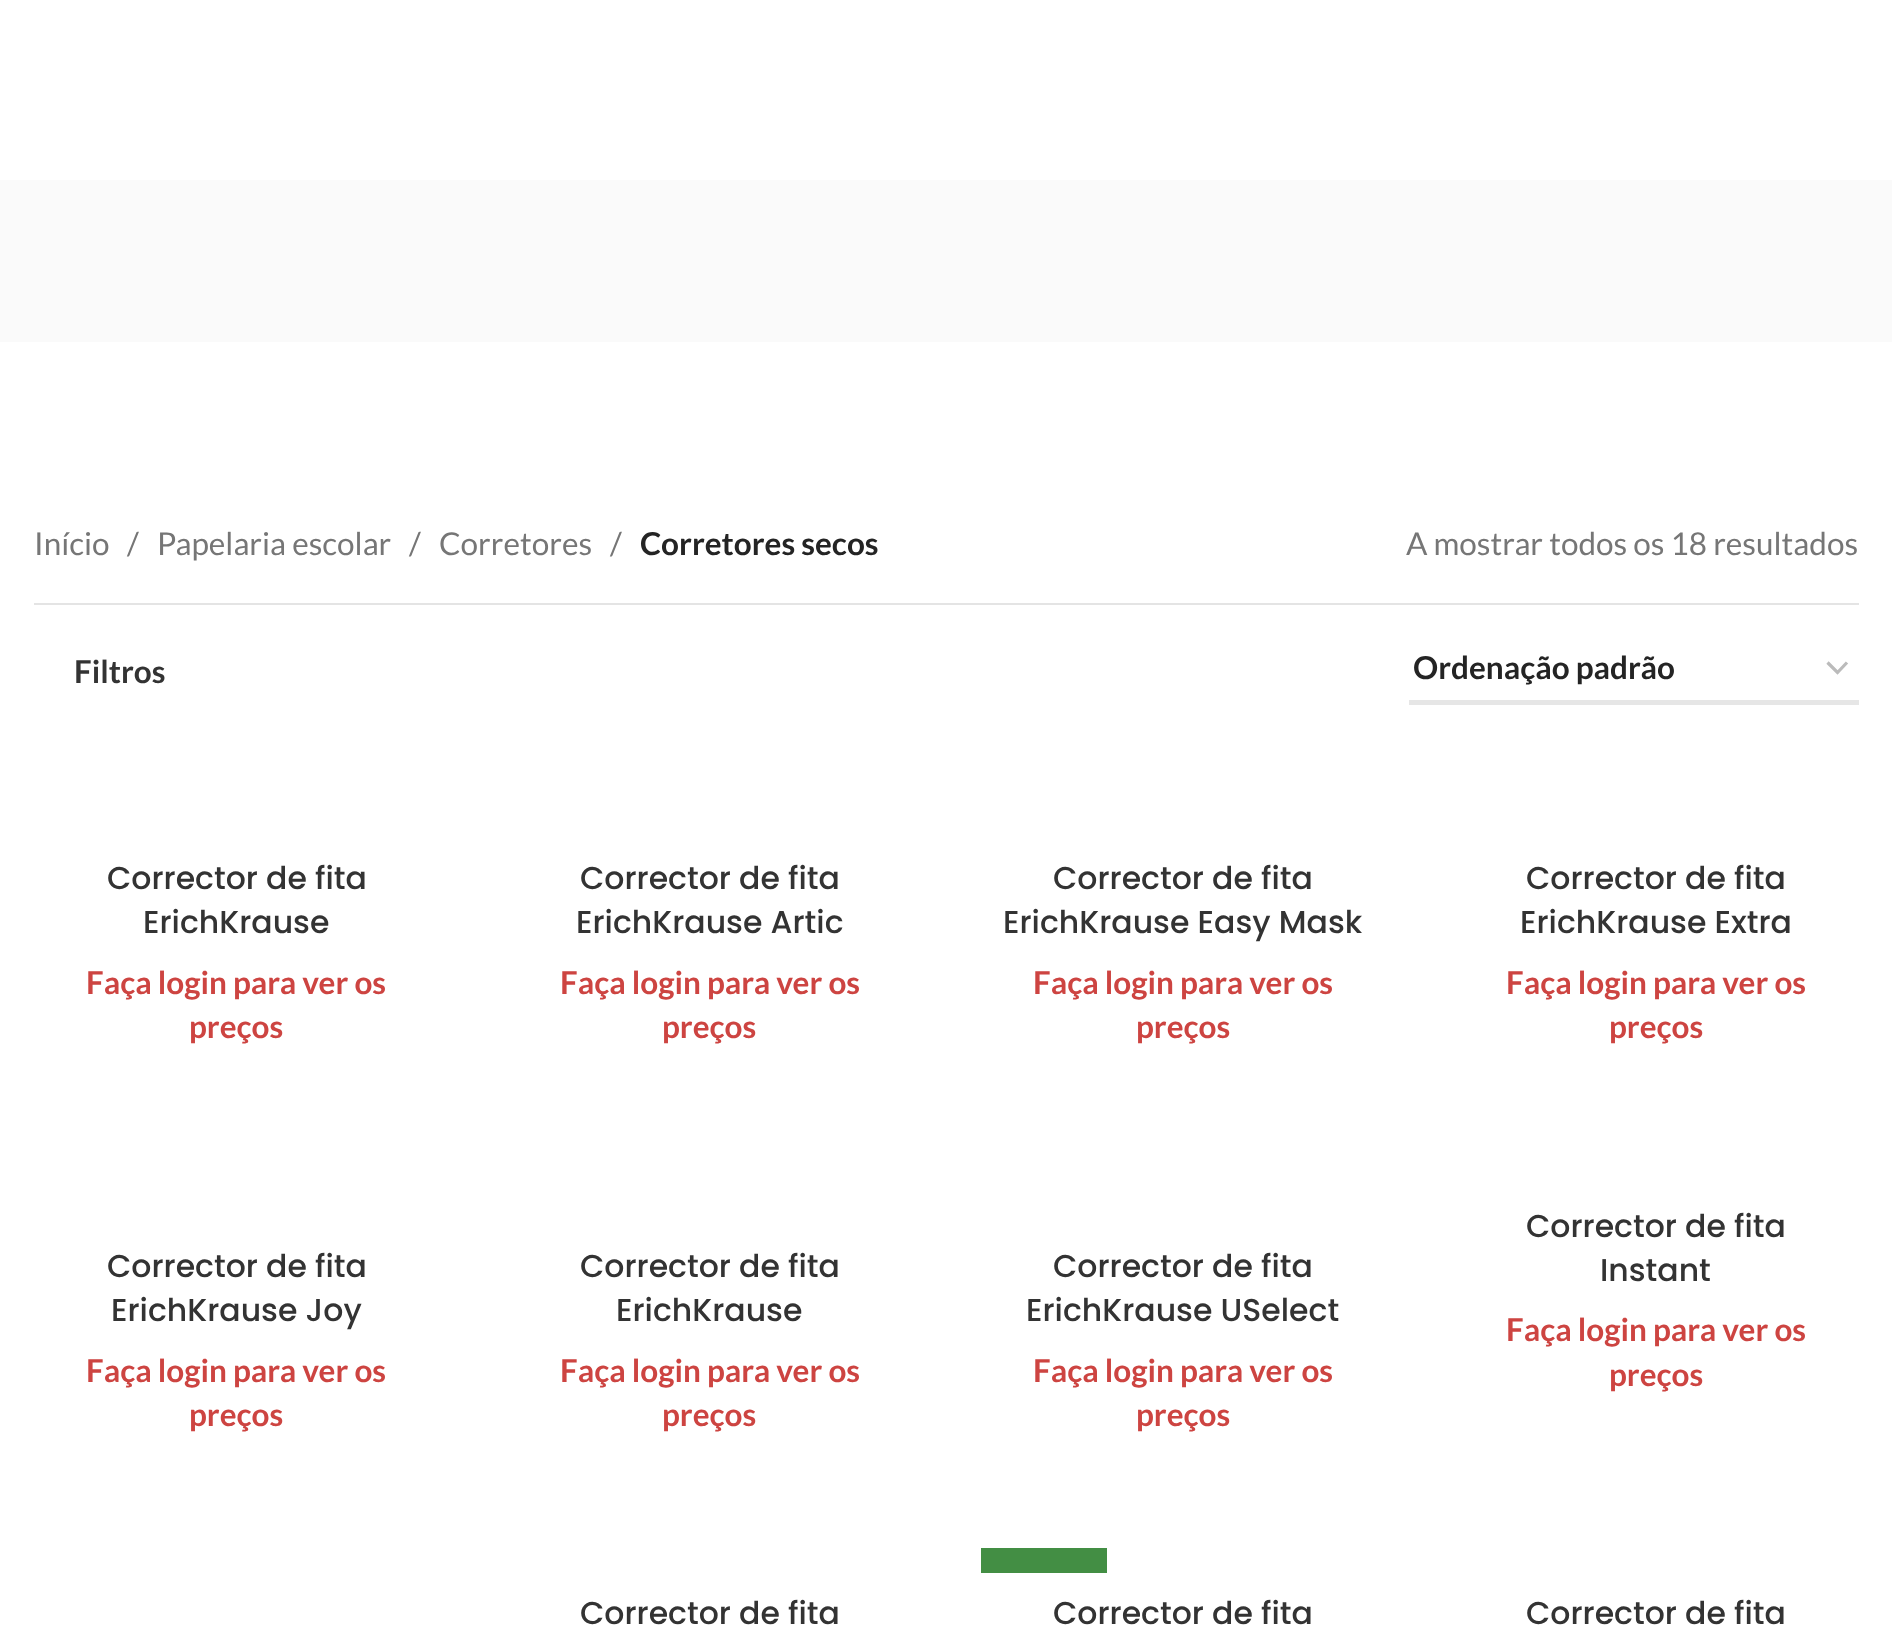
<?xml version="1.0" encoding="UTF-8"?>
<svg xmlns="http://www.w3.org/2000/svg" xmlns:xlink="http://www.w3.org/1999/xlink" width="1892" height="1627">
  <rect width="100%" height="100%" fill="#ffffff" />
  <rect y="180" width="1892" height="162" fill="#fafafa" />
  <rect x="34" y="603" width="1825" height="2" fill="#e4e4e4" />
  <path d="M 1827.5 662.5 l 10 10 l 9.5 -10" fill="none" stroke="#bbbbbb" stroke-width="3.2" />
  <rect x="1409" y="700" width="450" height="5" fill="#e6e6e6" />
  <rect x="981" y="1548" width="126" height="25" fill="#438e44" />
  <text x="34" y="555" style="font-family: Lato; font-size: 31.5px; fill: #767676">Início</text>
  <text x="127" y="555" style="font-family: Lato; font-size: 31.5px; fill: #767676">/</text>
  <text x="157" y="555" style="font-family: Lato; font-size: 31.5px; fill: #767676">Papelaria escolar</text>
  <text x="409" y="555" style="font-family: Lato; font-size: 31.5px; fill: #767676">/</text>
  <text x="439" y="555" style="font-family: Lato; font-size: 31.5px; fill: #767676">Corretores</text>
  <text x="610" y="555" style="font-family: Lato; font-size: 31.5px; fill: #767676">/</text>
  <text x="640" y="555" style="font-family: Lato; font-size: 31.5px; font-weight: bold; fill: #242424">Corretores secos</text>
  <text x="1406" y="555" style="font-family: Lato; font-size: 31.5px; fill: #767676">A mostrar todos os 18 resultados</text>
  <text x="74" y="683" style="font-family: Lato; font-size: 31.5px; font-weight: bold; fill: #333333">Filtros</text>
  <text x="1413" y="679" style="font-family: Lato; font-size: 31.5px; font-weight: bold; fill: #242424">Ordenação padrão</text>
  <text x="107" y="889" style="font-family: Poppins; font-size: 31.5px; font-weight: 500; fill: #333333">Corrector de fita</text>
  <text x="143" y="933" style="font-family: Poppins; font-size: 31.5px; font-weight: 500; fill: #333333">ErichKrause</text>
  <text x="86" y="994" style="font-family: Lato; font-size: 31.5px; font-weight: bold; fill: #cd4441">Faça login para ver os</text>
  <text x="189" y="1038" style="font-family: Lato; font-size: 31.5px; font-weight: bold; fill: #cd4441">preços</text>
  <text x="580" y="889" style="font-family: Poppins; font-size: 31.5px; font-weight: 500; fill: #333333">Corrector de fita</text>
  <text x="576" y="933" style="font-family: Poppins; font-size: 31.5px; font-weight: 500; fill: #333333">ErichKrause Artic</text>
  <text x="560" y="994" style="font-family: Lato; font-size: 31.5px; font-weight: bold; fill: #cd4441">Faça login para ver os</text>
  <text x="662" y="1038" style="font-family: Lato; font-size: 31.5px; font-weight: bold; fill: #cd4441">preços</text>
  <text x="1053" y="889" style="font-family: Poppins; font-size: 31.5px; font-weight: 500; fill: #333333">Corrector de fita</text>
  <text x="1003" y="933" style="font-family: Poppins; font-size: 31.5px; font-weight: 500; fill: #333333">ErichKrause Easy Mask</text>
  <text x="1033" y="994" style="font-family: Lato; font-size: 31.5px; font-weight: bold; fill: #cd4441">Faça login para ver os</text>
  <text x="1136" y="1038" style="font-family: Lato; font-size: 31.5px; font-weight: bold; fill: #cd4441">preços</text>
  <text x="1526" y="889" style="font-family: Poppins; font-size: 31.5px; font-weight: 500; fill: #333333">Corrector de fita</text>
  <text x="1520" y="933" style="font-family: Poppins; font-size: 31.5px; font-weight: 500; fill: #333333">ErichKrause Extra</text>
  <text x="1506" y="994" style="font-family: Lato; font-size: 31.5px; font-weight: bold; fill: #cd4441">Faça login para ver os</text>
  <text x="1609" y="1038" style="font-family: Lato; font-size: 31.5px; font-weight: bold; fill: #cd4441">preços</text>
  <text x="107" y="1277" style="font-family: Poppins; font-size: 31.5px; font-weight: 500; fill: #333333">Corrector de fita</text>
  <text x="111" y="1321" style="font-family: Poppins; font-size: 31.5px; font-weight: 500; fill: #333333">ErichKrause Joy</text>
  <text x="86" y="1382" style="font-family: Lato; font-size: 31.5px; font-weight: bold; fill: #cd4441">Faça login para ver os</text>
  <text x="189" y="1426" style="font-family: Lato; font-size: 31.5px; font-weight: bold; fill: #cd4441">preços</text>
  <text x="580" y="1277" style="font-family: Poppins; font-size: 31.5px; font-weight: 500; fill: #333333">Corrector de fita</text>
  <text x="616" y="1321" style="font-family: Poppins; font-size: 31.5px; font-weight: 500; fill: #333333">ErichKrause</text>
  <text x="560" y="1382" style="font-family: Lato; font-size: 31.5px; font-weight: bold; fill: #cd4441">Faça login para ver os</text>
  <text x="662" y="1426" style="font-family: Lato; font-size: 31.5px; font-weight: bold; fill: #cd4441">preços</text>
  <text x="1053" y="1277" style="font-family: Poppins; font-size: 31.5px; font-weight: 500; fill: #333333">Corrector de fita</text>
  <text x="1026" y="1321" style="font-family: Poppins; font-size: 31.5px; font-weight: 500; fill: #333333">ErichKrause USelect</text>
  <text x="1033" y="1382" style="font-family: Lato; font-size: 31.5px; font-weight: bold; fill: #cd4441">Faça login para ver os</text>
  <text x="1136" y="1426" style="font-family: Lato; font-size: 31.5px; font-weight: bold; fill: #cd4441">preços</text>
  <text x="1526" y="1237" style="font-family: Poppins; font-size: 31.5px; font-weight: 500; fill: #333333">Corrector de fita</text>
  <text x="1600" y="1281" style="font-family: Poppins; font-size: 31.5px; font-weight: 500; fill: #333333">Instant</text>
  <text x="1506" y="1341" style="font-family: Lato; font-size: 31.5px; font-weight: bold; fill: #cd4441">Faça login para ver os</text>
  <text x="1609" y="1386" style="font-family: Lato; font-size: 31.5px; font-weight: bold; fill: #cd4441">preços</text>
  <text x="580" y="1624" style="font-family: Poppins; font-size: 31.5px; font-weight: 500; fill: #333333">Corrector de fita</text>
  <text x="1053" y="1624" style="font-family: Poppins; font-size: 31.5px; font-weight: 500; fill: #333333">Corrector de fita</text>
  <text x="1526" y="1624" style="font-family: Poppins; font-size: 31.5px; font-weight: 500; fill: #333333">Corrector de fita</text>
</svg>
